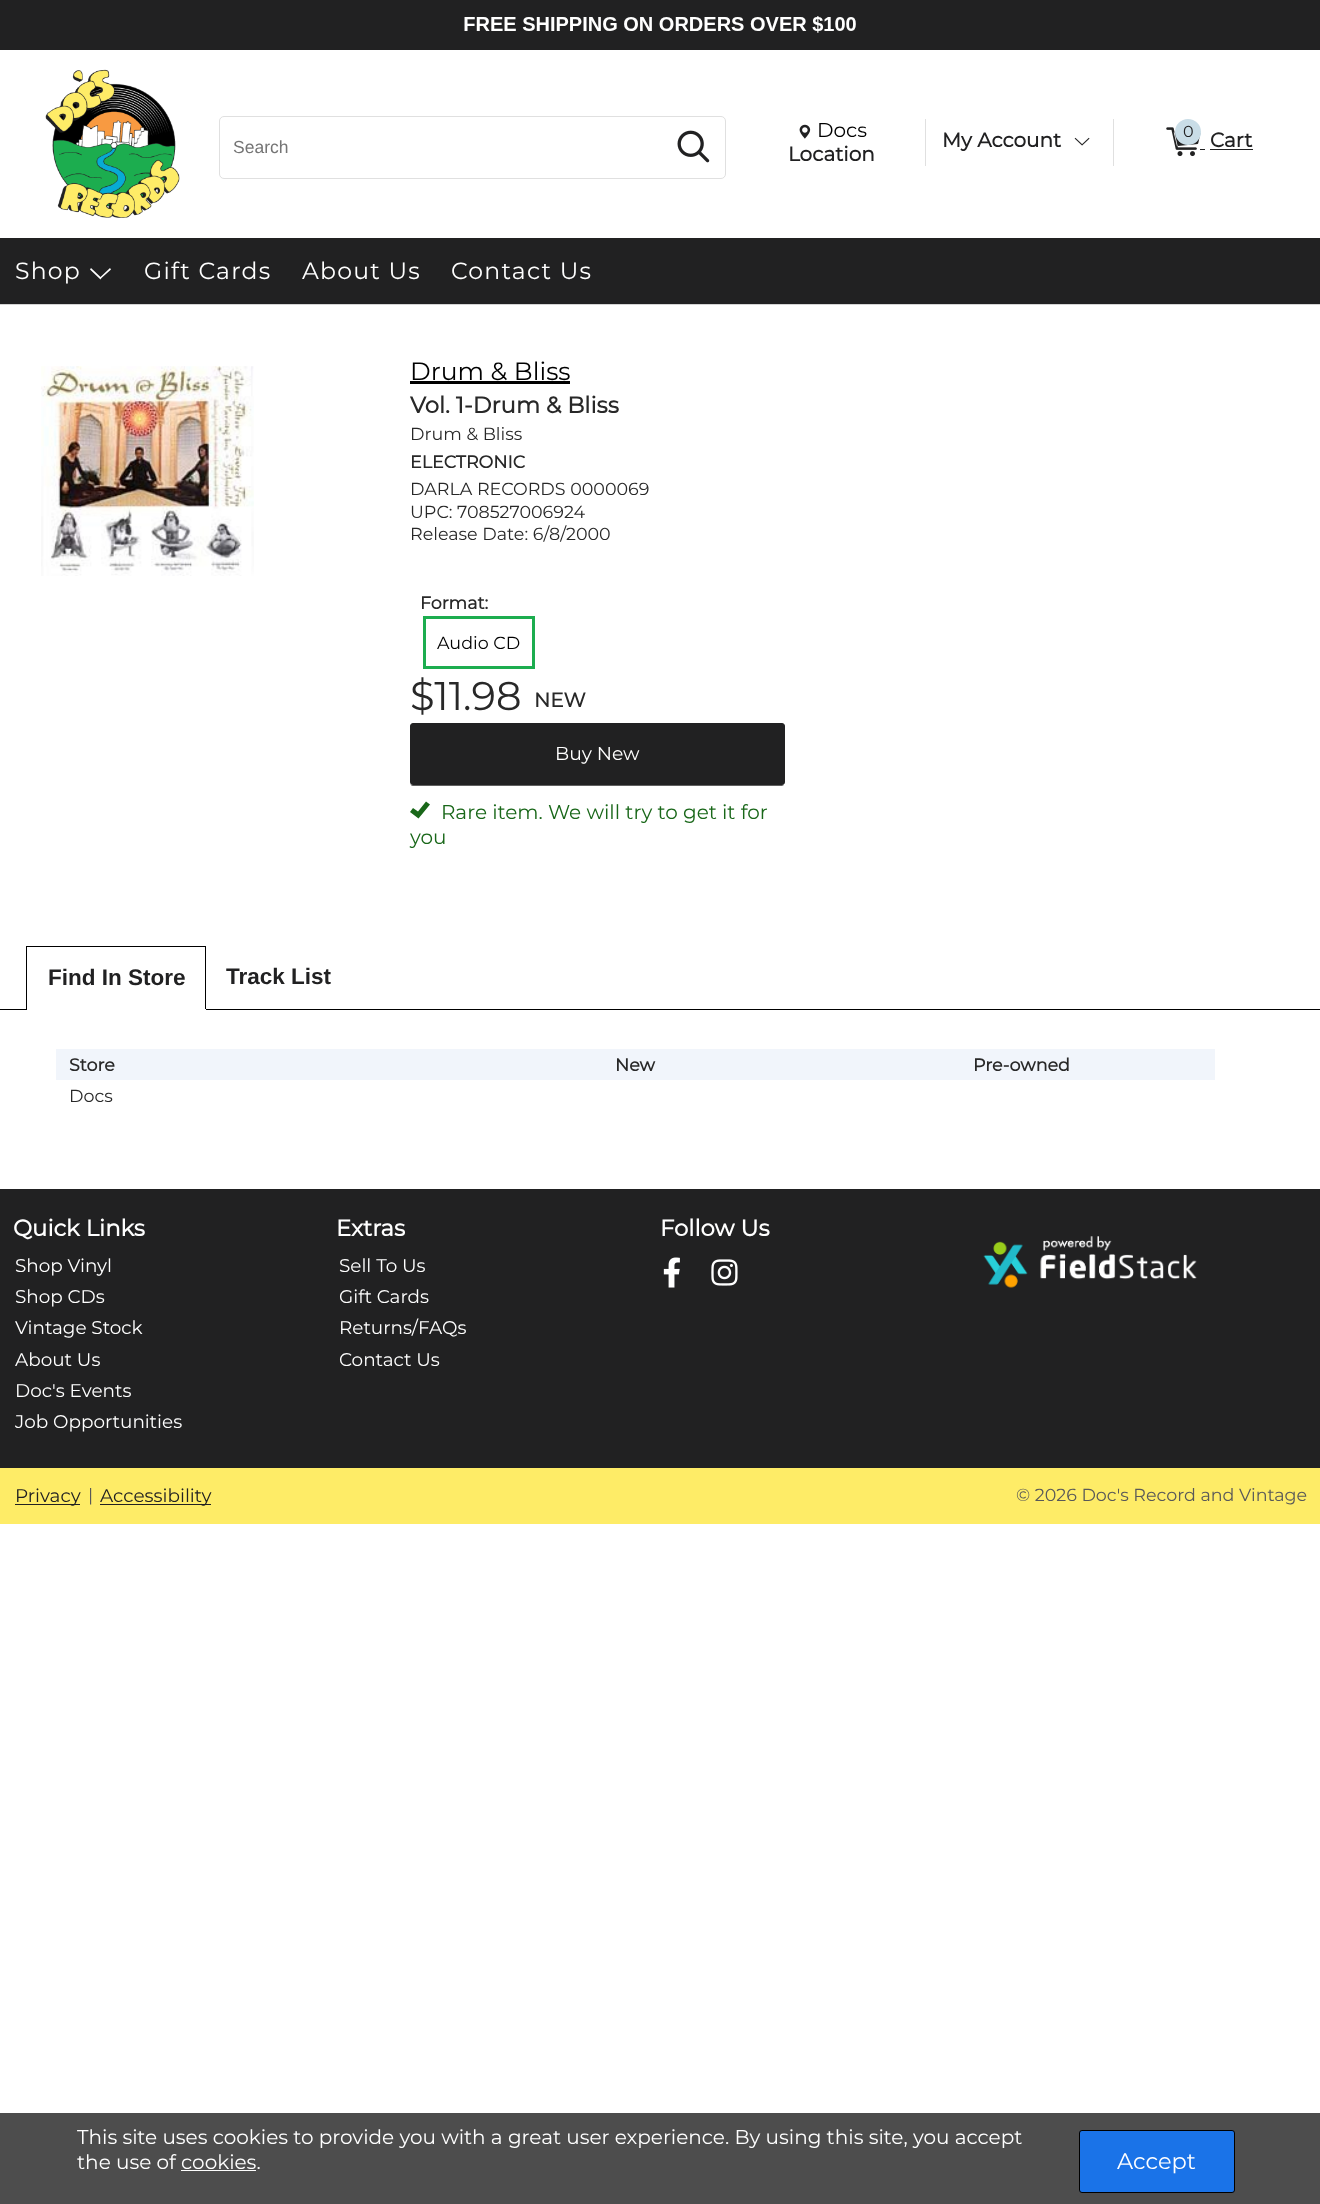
<?xml version="1.0" encoding="UTF-8"?>
<svg xmlns="http://www.w3.org/2000/svg" xmlns:xlink="http://www.w3.org/1999/xlink" width="1320" height="2204">
  <rect width="100%" height="100%" fill="#ffffff" />
  <rect width="1320" height="50" fill="#212122" />
  <image x="464" y="16" width="392" height="17" xlink:href="image1.png" />
  <image x="45" y="69" width="135" height="149" xlink:href="image2.png" />
  <rect x="219.5" y="116.5" width="506" height="62" rx="4.5" fill="none" stroke="#e0e0e0" />
  <image x="677" y="130" width="33" height="33" xlink:href="image3.png" />
  <rect x="925" y="119" width="1" height="47" fill="#e0e0e0" />
  <image x="799" y="124" width="12" height="15" xlink:href="image4.png" />
  <rect x="1113" y="119" width="1" height="47" fill="#e0e0e0" />
  <image x="1074" y="137" width="16" height="9" xlink:href="image5.png" />
  <rect x="1200" y="149" width="5" height="1" fill="#212122" />
  <image x="1166" y="127" width="35" height="30" xlink:href="image6.png" />
  <circle cx="1188" cy="132" r="13" fill="#c9dde7" />
  <rect x="1210" y="149" width="43" height="1" fill="#212122" />
  <rect y="238" width="1320" height="66" fill="#212122" />
  <path d="M 101.5 278 l 9.5 -8.5 l -1 -1.5 l -9.5 9 l -9.5 -9 l -1 1.5 l 10.5 10 z" fill="#ffffff" />
  <rect y="304" width="1320" height="1" fill="#d3d3d3" />
  <image x="41" y="366" width="213" height="210" xlink:href="image7.png" />
  <rect x="410" y="381" width="160" height="3" fill="#000000" />
  <rect x="424.5" y="617.5" width="109" height="50" fill="none" stroke="#1cad4f" stroke-width="3" />
  <path d="M 410 782 c 0 2 1 4 3 4 h 369 l 2 -1 l 1 -3 c 0 2 -1 3 -3 3 h -369 c -2 0 -3 -1 -3 -3 z" fill="#606060" />
  <rect x="410.5" y="723.5" width="374" height="61" rx="2.5" fill="#212122" stroke="#212122" />
  <path d="M 418 811.5 l 8 -10 l 4 3 l -11.5 14 l -8.5 -6.5 l 3 -4 z" fill="#196719" />
  <rect x="26" y="946" width="180" height="1" fill="#000000" />
  <rect y="1009" width="1320" height="1" fill="#000000" />
  <rect x="205" y="946" width="1" height="64" fill="#000000" />
  <rect x="26" y="1009" width="180" height="1" fill="#ffffff" />
  <rect x="26" y="946" width="1" height="64" fill="#000000" />
  <rect x="56" y="1049" width="1159" height="31" fill="#f1f5fb" />
  <rect y="1189" width="1320" height="279" fill="#212122" />
  <image x="663" y="1257" width="17" height="31" xlink:href="image8.png" />
  <image x="711" y="1259" width="27" height="27" xlink:href="image9.png" />
  <image x="983" y="1236" width="214" height="52" xlink:href="image10.png" />
  <rect y="1468" width="1320" height="56" fill="#feec67" />
  <rect x="15" y="1504" width="65" height="1" fill="#212122" />
  <rect x="100" y="1504" width="111" height="1" fill="#212122" />
  <rect y="2113" width="1320" height="91" fill="#4d4d4d" />
  <rect x="181" y="2170" width="75" height="1" fill="#ffffff" />
  <rect x="1079.5" y="2130.5" width="155" height="62" rx="2.5" fill="#1a73e8" stroke="#000000" />
  <text x="233" y="153" style="font-family: Liberation Sans; font-size: 17.5px; fill: #757575">Search</text>
  <text x="817" y="137" style="font-family: Montserrat; font-size: 20px; font-weight: 100; fill: #000000">Docs</text>
  <text x="788" y="161" style="font-family: Montserrat; font-size: 20px; font-weight: bold; fill: #212122">Location</text>
  <text x="942" y="147" style="font-family: Montserrat; font-size: 20px; font-weight: bold; fill: #212122">My Account</text>
  <text x="1183" y="137" style="font-family: Montserrat; font-size: 16px; font-weight: 100; fill: #212122">0</text>
  <text x="1210" y="147" style="font-family: Montserrat; font-size: 20px; font-weight: bold; fill: #212122">Cart</text>
  <text x="15" y="279" style="font-family: Montserrat; font-size: 23.5px; font-weight: 100; letter-spacing: 1.25px; fill: #ffffff">Shop</text>
  <text x="144" y="279" style="font-family: Montserrat; font-size: 23.5px; font-weight: 100; letter-spacing: 1.25px; fill: #ffffff">Gift Cards</text>
  <text x="302" y="279" style="font-family: Montserrat; font-size: 23.5px; font-weight: 100; letter-spacing: 1.25px; fill: #ffffff">About Us</text>
  <text x="451" y="279" style="font-family: Montserrat; font-size: 23.5px; font-weight: 100; letter-spacing: 1.25px; fill: #ffffff">Contact Us</text>
  <text x="410" y="380" style="font-family: Montserrat; font-size: 25px; font-weight: 100; fill: #000000">Drum &amp; Bliss</text>
  <text x="410" y="413" style="font-family: Montserrat; font-size: 22.75px; font-weight: bold; fill: #282828">Vol. 1-Drum &amp; Bliss</text>
  <text x="410" y="440" style="font-family: Montserrat; font-size: 17.5px; font-weight: 100; fill: #282828">Drum &amp; Bliss</text>
  <text x="410" y="468" style="font-family: Montserrat; font-size: 17.5px; font-weight: bold; fill: #282828">ELECTRONIC</text>
  <text x="410" y="495" style="font-family: Montserrat; font-size: 17.5px; font-weight: 100; fill: #282828">DARLA RECORDS 0000069</text>
  <text x="410" y="518" style="font-family: Montserrat; font-size: 17.5px; font-weight: 100; fill: #282828">UPC: 708527006924</text>
  <text x="410" y="540" style="font-family: Montserrat; font-size: 17.5px; font-weight: 100; fill: #282828">Release Date: 6/8/2000</text>
  <text x="420" y="609" style="font-family: Montserrat; font-size: 17.5px; font-weight: bold; fill: #282828">Format:</text>
  <text x="437" y="649" style="font-family: Montserrat; font-size: 17.5px; font-weight: 100; fill: #000000">Audio CD</text>
  <text x="410" y="710" style="font-family: Montserrat; font-size: 40px; font-weight: 100; fill: #282828">$11.98</text>
  <text x="534" y="707" style="font-family: Montserrat; font-size: 20px; font-weight: bold; fill: #282828">NEW</text>
  <text x="555" y="760" style="font-family: Montserrat; font-size: 18.75px; font-weight: 100; fill: #ffffff">Buy New</text>
  <text x="441" y="819" style="font-family: Montserrat; font-size: 20px; font-weight: 100; fill: #196719">Rare item. We will try to get it for</text>
  <text x="410" y="844" style="font-family: Montserrat; font-size: 20px; font-weight: 100; fill: #196719">you</text>
  <text x="48" y="985" style="font-family: Liberation Sans; font-size: 22.5px; font-weight: bold; fill: #212122">Find In Store</text>
  <text x="226" y="984" style="font-family: Liberation Sans; font-size: 22.5px; font-weight: bold; fill: #212122">Track List</text>
  <text x="69" y="1071" style="font-family: Montserrat; font-size: 17.5px; font-weight: bold; fill: #282828">Store</text>
  <text x="615" y="1071" style="font-family: Montserrat; font-size: 17.5px; font-weight: bold; fill: #282828">New</text>
  <text x="973" y="1071" style="font-family: Montserrat; font-size: 17.5px; font-weight: bold; fill: #282828">Pre-owned</text>
  <text x="69" y="1102" style="font-family: Montserrat; font-size: 17.5px; font-weight: 100; fill: #282828">Docs</text>
  <text x="13" y="1236" style="font-family: Montserrat; font-size: 22.75px; font-weight: bold; fill: #ffffff">Quick Links</text>
  <text x="15" y="1272" style="font-family: Montserrat; font-size: 18.4px; font-weight: 100; fill: #ffffff">Shop Vinyl</text>
  <text x="15" y="1303" style="font-family: Montserrat; font-size: 18.4px; font-weight: 100; fill: #ffffff">Shop CDs</text>
  <text x="15" y="1334" style="font-family: Montserrat; font-size: 18.4px; font-weight: 100; fill: #ffffff">Vintage Stock</text>
  <text x="15" y="1366" style="font-family: Montserrat; font-size: 18.4px; font-weight: 100; fill: #ffffff">About Us</text>
  <text x="15" y="1397" style="font-family: Montserrat; font-size: 18.4px; font-weight: 100; fill: #ffffff">Doc's Events</text>
  <text x="15" y="1428" style="font-family: Montserrat; font-size: 18.4px; font-weight: 100; fill: #ffffff">Job Opportunities</text>
  <text x="336" y="1236" style="font-family: Montserrat; font-size: 22.75px; font-weight: bold; fill: #ffffff">Extras</text>
  <text x="339" y="1272" style="font-family: Montserrat; font-size: 18.4px; font-weight: 100; fill: #ffffff">Sell To Us</text>
  <text x="339" y="1303" style="font-family: Montserrat; font-size: 18.4px; font-weight: 100; fill: #ffffff">Gift Cards</text>
  <text x="339" y="1334" style="font-family: Montserrat; font-size: 18.4px; font-weight: 100; fill: #ffffff">Returns/FAQs</text>
  <text x="339" y="1366" style="font-family: Montserrat; font-size: 18.4px; font-weight: 100; fill: #ffffff">Contact Us</text>
  <text x="660" y="1236" style="font-family: Montserrat; font-size: 22.75px; font-weight: bold; fill: #ffffff">Follow Us</text>
  <text x="15" y="1502" style="font-family: Montserrat; font-size: 18.4px; font-weight: 100; fill: #212122">Privacy</text>
  <text x="88" y="1501" style="font-family: Montserrat; font-size: 17.5px; font-weight: 100; fill: #595959">|</text>
  <text x="100" y="1502" style="font-family: Montserrat; font-size: 18.4px; font-weight: 100; fill: #212122">Accessibility</text>
  <text x="1016" y="1501" style="font-family: Montserrat; font-size: 17.5px; font-weight: 100; fill: #595959">© 2026 Doc's Record and Vintage</text>
  <text x="77" y="2144" style="font-family: Montserrat; font-size: 20px; font-weight: 100; fill: #ffffff">This site uses cookies to provide you with a great user experience. By using this site, you accept</text>
  <text x="77" y="2169" style="font-family: Montserrat; font-size: 20px; font-weight: 100; fill: #ffffff">the use of cookies.</text>
  <text x="1117" y="2169" style="font-family: Montserrat; font-size: 22.5px; font-weight: 100; fill: #ffffff">Accept</text>
</svg>
